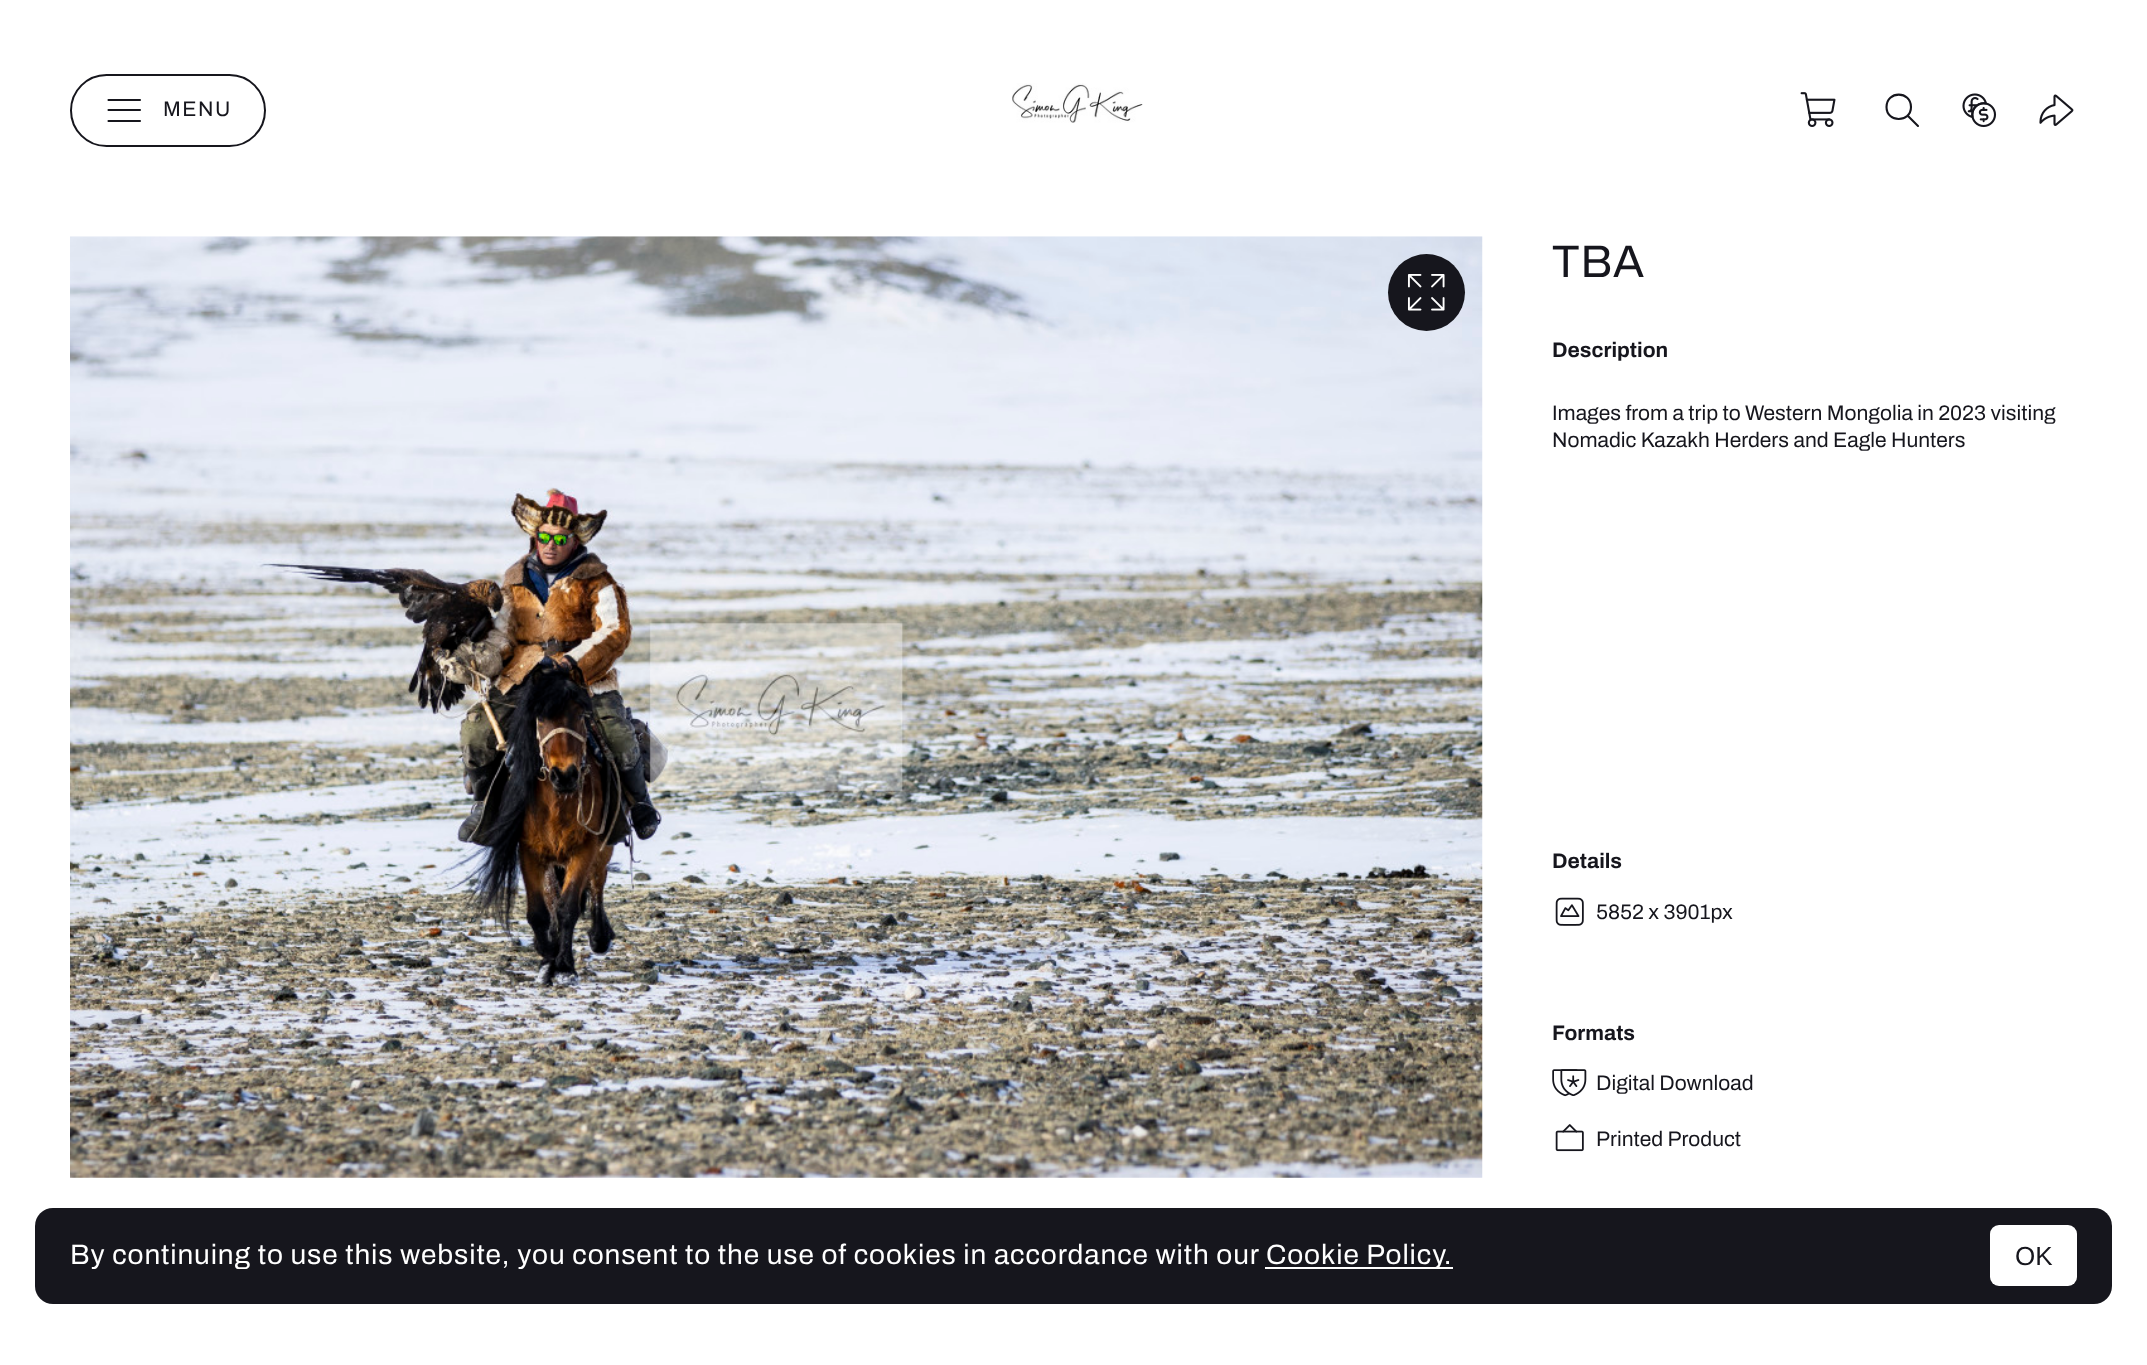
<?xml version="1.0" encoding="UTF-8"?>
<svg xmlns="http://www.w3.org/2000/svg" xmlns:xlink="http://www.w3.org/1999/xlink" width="2147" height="1365">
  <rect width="100%" height="100%" fill="#ffffff" />
  <rect x="71" y="75" width="194" height="71" rx="35.5" fill="none" stroke="#16161d" stroke-width="2" />
  <path d="M 108.5 110 h 31.5 m -31.5 -10 h 31.5 m -31.5 21 h 31.5" fill="none" stroke="#16161d" stroke-width="2.1" stroke-linecap="round" stroke-linejoin="round" />
  <image x="1012" y="83" width="131" height="40" xlink:href="image1.png" />
  <image x="1800" y="92" width="36" height="35" xlink:href="image2.png" />
  <path d="M 1918 126 l -10.5 -10.5 m 3.5 -8.5 c 0 16 -24.5 16 -24.5 0 c 0 -16.5 24.5 -16.5 24.5 0 z" fill="none" stroke="#16161d" stroke-width="2.1" stroke-linecap="round" stroke-linejoin="round" />
  <image x="1962" y="93" width="35" height="35" xlink:href="image3.png" />
  <image x="2039" y="94" width="35" height="32" xlink:href="image4.png" />
  <image x="70" y="236" width="1413" height="942" xlink:href="image5.png" />
  <circle cx="1426.5" cy="292.5" r="38.5" fill="#16161d" />
  <image x="1407" y="274" width="38" height="37" xlink:href="image6.png" />
  <image x="1555" y="897" width="29" height="29" xlink:href="image7.png" />
  <image x="1552" y="1069" width="35" height="28" xlink:href="image8.png" />
  <image x="1555" y="1124" width="29" height="28" xlink:href="image9.png" />
  <rect x="35" y="1208" width="2077" height="96" rx="18" fill="#16161d" />
  <rect x="1265" y="1267" width="188" height="2" fill="#ffffff" />
  <rect x="1990" y="1225" width="87" height="61" rx="9" fill="#ffffff" />
  <text x="163" y="116" style="font-family: Archivo; font-size: 21px; letter-spacing: 1.5px; fill: #16161d">MENU</text>
  <text x="1552" y="277" style="font-family: Archivo; font-size: 45.5px; letter-spacing: 0.88px; fill: #16161d">TBA</text>
  <text x="1552" y="357" style="font-family: Archivo; font-size: 21px; font-weight: bold; fill: #16161d">Description</text>
  <text x="1552" y="420" style="font-family: Archivo; font-size: 21px; fill: #16161d">Images from a trip to Western Mongolia in 2023 visiting</text>
  <text x="1552" y="447" style="font-family: Archivo; font-size: 21px; fill: #16161d">Nomadic Kazakh Herders and Eagle Hunters</text>
  <text x="1552" y="868" style="font-family: Archivo; font-size: 21px; font-weight: bold; fill: #16161d">Details</text>
  <text x="1596" y="919" style="font-family: Archivo; font-size: 21px; fill: #16161d">5852 x 3901px</text>
  <text x="1552" y="1040" style="font-family: Archivo; font-size: 21px; font-weight: bold; fill: #16161d">Formats</text>
  <text x="1596" y="1090" style="font-family: Archivo; font-size: 21px; fill: #16161d">Digital Download</text>
  <text x="1596" y="1146" style="font-family: Archivo; font-size: 21px; fill: #16161d">Printed Product</text>
  <text x="70" y="1264" style="font-family: Archivo; font-size: 28px; letter-spacing: 0.88px; fill: #ffffff">By continuing to use this website, you consent to the use of cookies in accordance with our</text>
  <text x="1266" y="1264" style="font-family: Archivo; font-size: 28px; letter-spacing: 0.88px; fill: #ffffff">Cookie Policy.</text>
  <text x="2015" y="1265" style="font-family: Liberation Sans; font-size: 26px; fill: #16161d">OK</text>
</svg>
